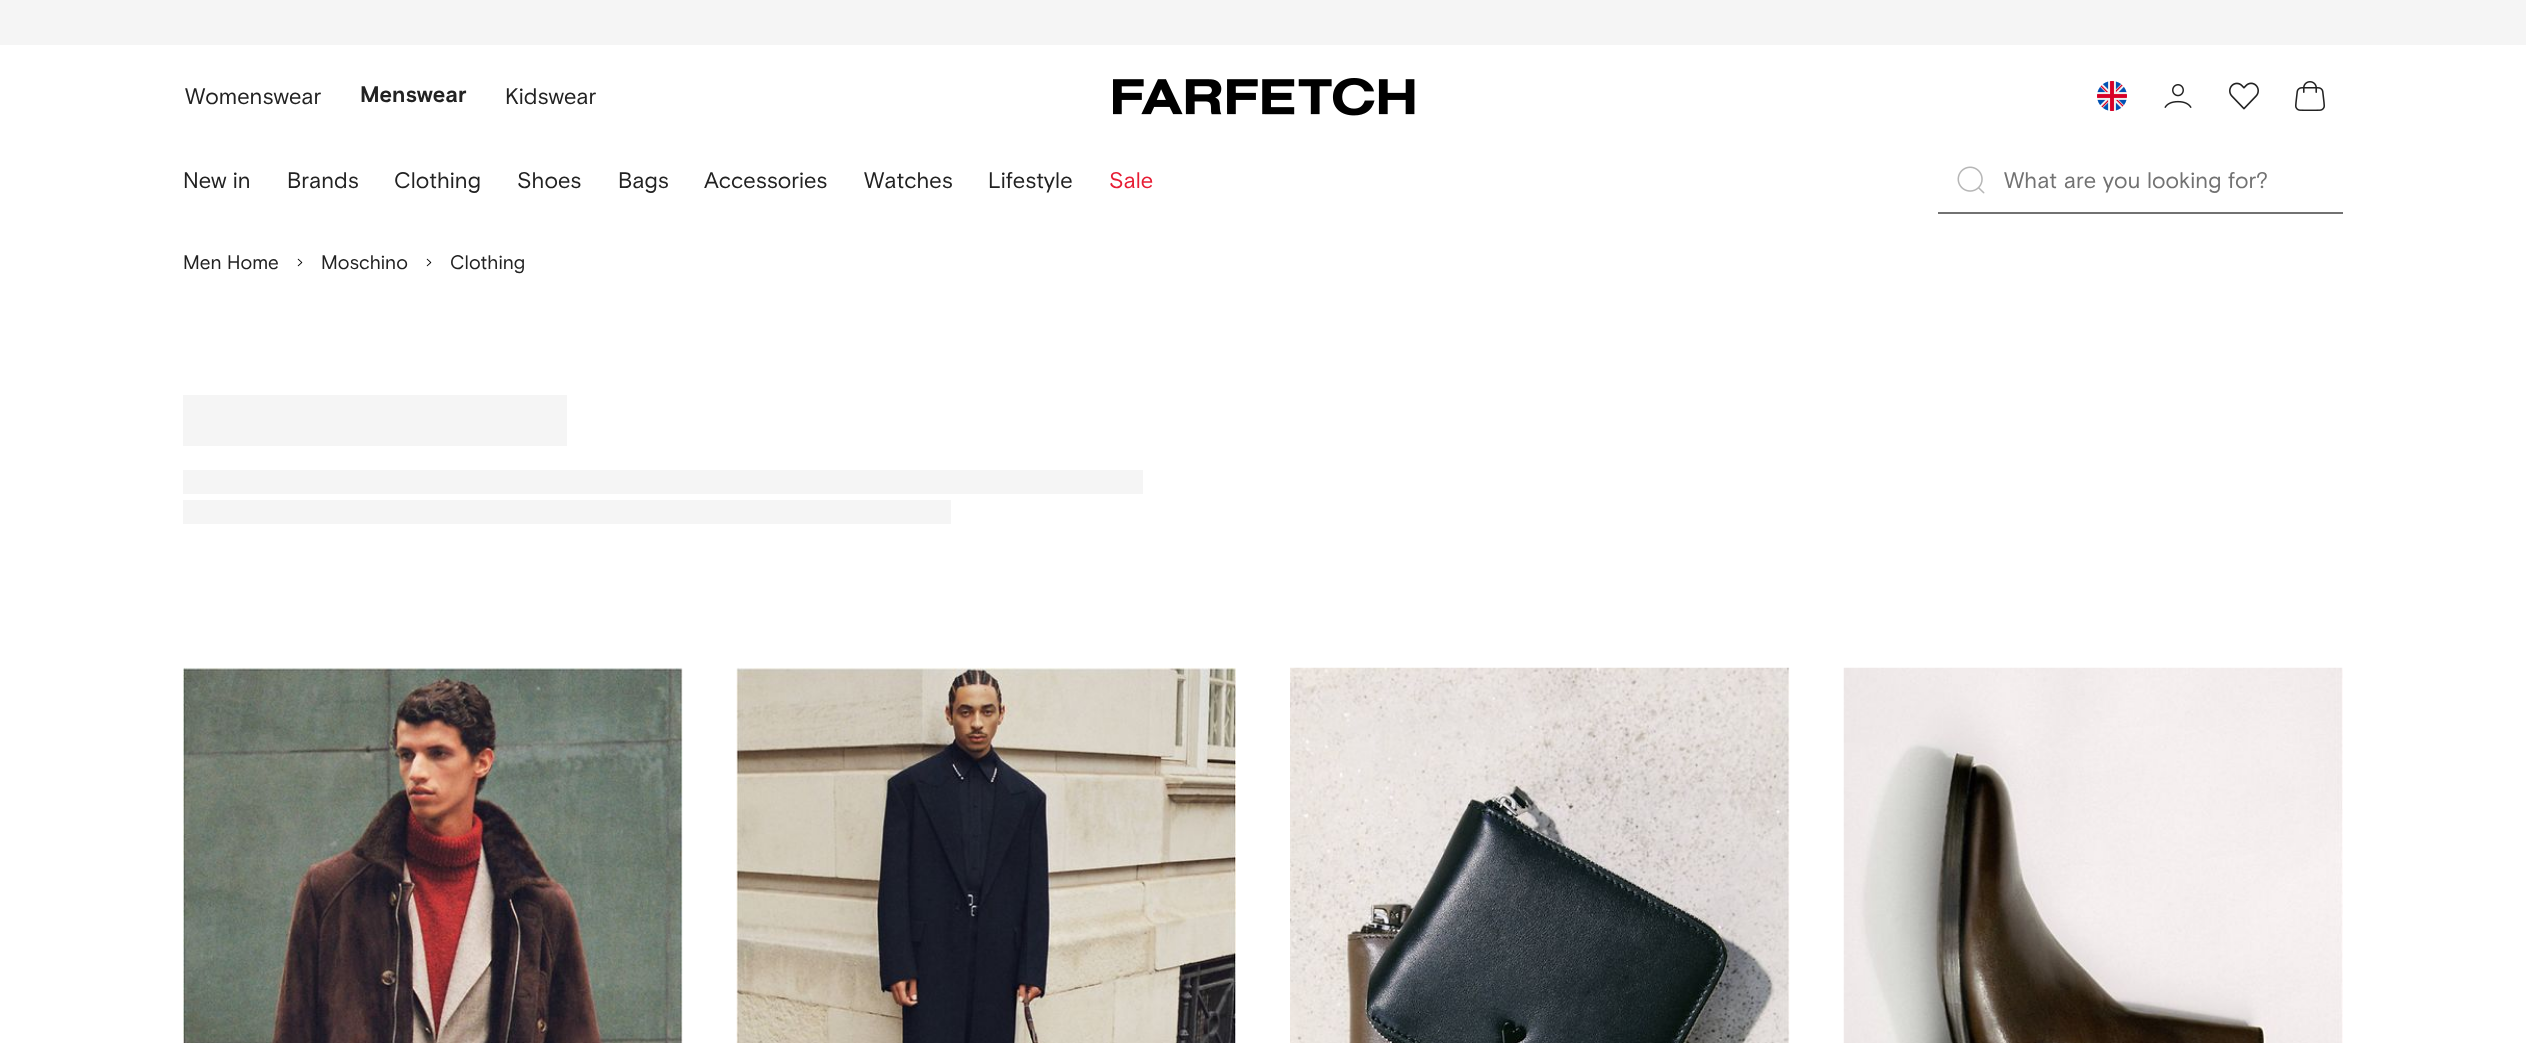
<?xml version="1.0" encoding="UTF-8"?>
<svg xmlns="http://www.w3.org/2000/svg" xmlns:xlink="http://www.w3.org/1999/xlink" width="2526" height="1043">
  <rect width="100%" height="100%" fill="#ffffff" />
  <rect width="2526" height="45" fill="#f5f5f5" />
  <image x="1113" y="78" width="302" height="38" xlink:href="image1.png" />
  <image x="2097" y="81" width="30" height="30" xlink:href="image2.png" />
  <image x="2164" y="84" width="28" height="24" xlink:href="image3.png" />
  <image x="2229" y="82" width="30" height="28" xlink:href="image4.png" />
  <image x="2295" y="81" width="30" height="30" xlink:href="image5.png" />
  <rect x="1938" y="212" width="405" height="2" fill="#727272" />
  <image x="1957" y="166" width="28" height="28" xlink:href="image6.png" />
  <image x="297" y="258" width="6" height="9" xlink:href="image7.png" />
  <image x="426" y="258" width="6" height="9" xlink:href="image7.png" />
  <rect x="183" y="395" width="384" height="51" fill="#f5f5f5" />
  <rect x="183" y="470" width="960" height="24" fill="#f5f5f5" />
  <rect x="183" y="500" width="768" height="24" fill="#f5f5f5" />
  <image x="183" y="667" width="500" height="376" xlink:href="image8.png" />
  <image x="736" y="667" width="500" height="376" xlink:href="image9.png" />
  <image x="1290" y="667" width="500" height="376" xlink:href="image10.png" />
  <image x="1843" y="667" width="500" height="376" xlink:href="image11.png" />
  <text x="185" y="104" style="font-family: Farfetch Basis; font-size: 22.5px; fill: #222222">Womenswear</text>
  <text x="360" y="102" style="font-family: Farfetch Basis; font-size: 22.5px; font-weight: bold; fill: #222222">Menswear</text>
  <text x="505" y="104" style="font-family: Farfetch Basis; font-size: 22.5px; fill: #222222">Kidswear</text>
  <text x="183" y="188" style="font-family: Farfetch Basis; font-size: 22.5px; fill: #222222">New in</text>
  <text x="287" y="188" style="font-family: Farfetch Basis; font-size: 22.5px; fill: #222222">Brands</text>
  <text x="394" y="188" style="font-family: Farfetch Basis; font-size: 22.5px; fill: #222222">Clothing</text>
  <text x="517" y="188" style="font-family: Farfetch Basis; font-size: 22.5px; fill: #222222">Shoes</text>
  <text x="618" y="188" style="font-family: Farfetch Basis; font-size: 22.5px; fill: #222222">Bags</text>
  <text x="704" y="188" style="font-family: Farfetch Basis; font-size: 22.5px; fill: #222222">Accessories</text>
  <text x="864" y="188" style="font-family: Farfetch Basis; font-size: 22.5px; fill: #222222">Watches</text>
  <text x="988" y="188" style="font-family: Farfetch Basis; font-size: 22.5px; fill: #222222">Lifestyle</text>
  <text x="1109" y="188" style="font-family: Farfetch Basis; font-size: 22.5px; fill: #e71d34">Sale</text>
  <text x="2004" y="188" word-spacing="0.5" style="font-family: Farfetch Basis; font-size: 22.5px; fill: #727272">What are you looking for?</text>
  <text x="183" y="269" style="font-family: Farfetch Basis; font-size: 19.5px; fill: #222222">Men Home</text>
  <text x="321" y="269" style="font-family: Farfetch Basis; font-size: 19.5px; fill: #222222">Moschino</text>
  <text x="450" y="269" style="font-family: Farfetch Basis; font-size: 19.5px; fill: #222222">Clothing</text>
</svg>
